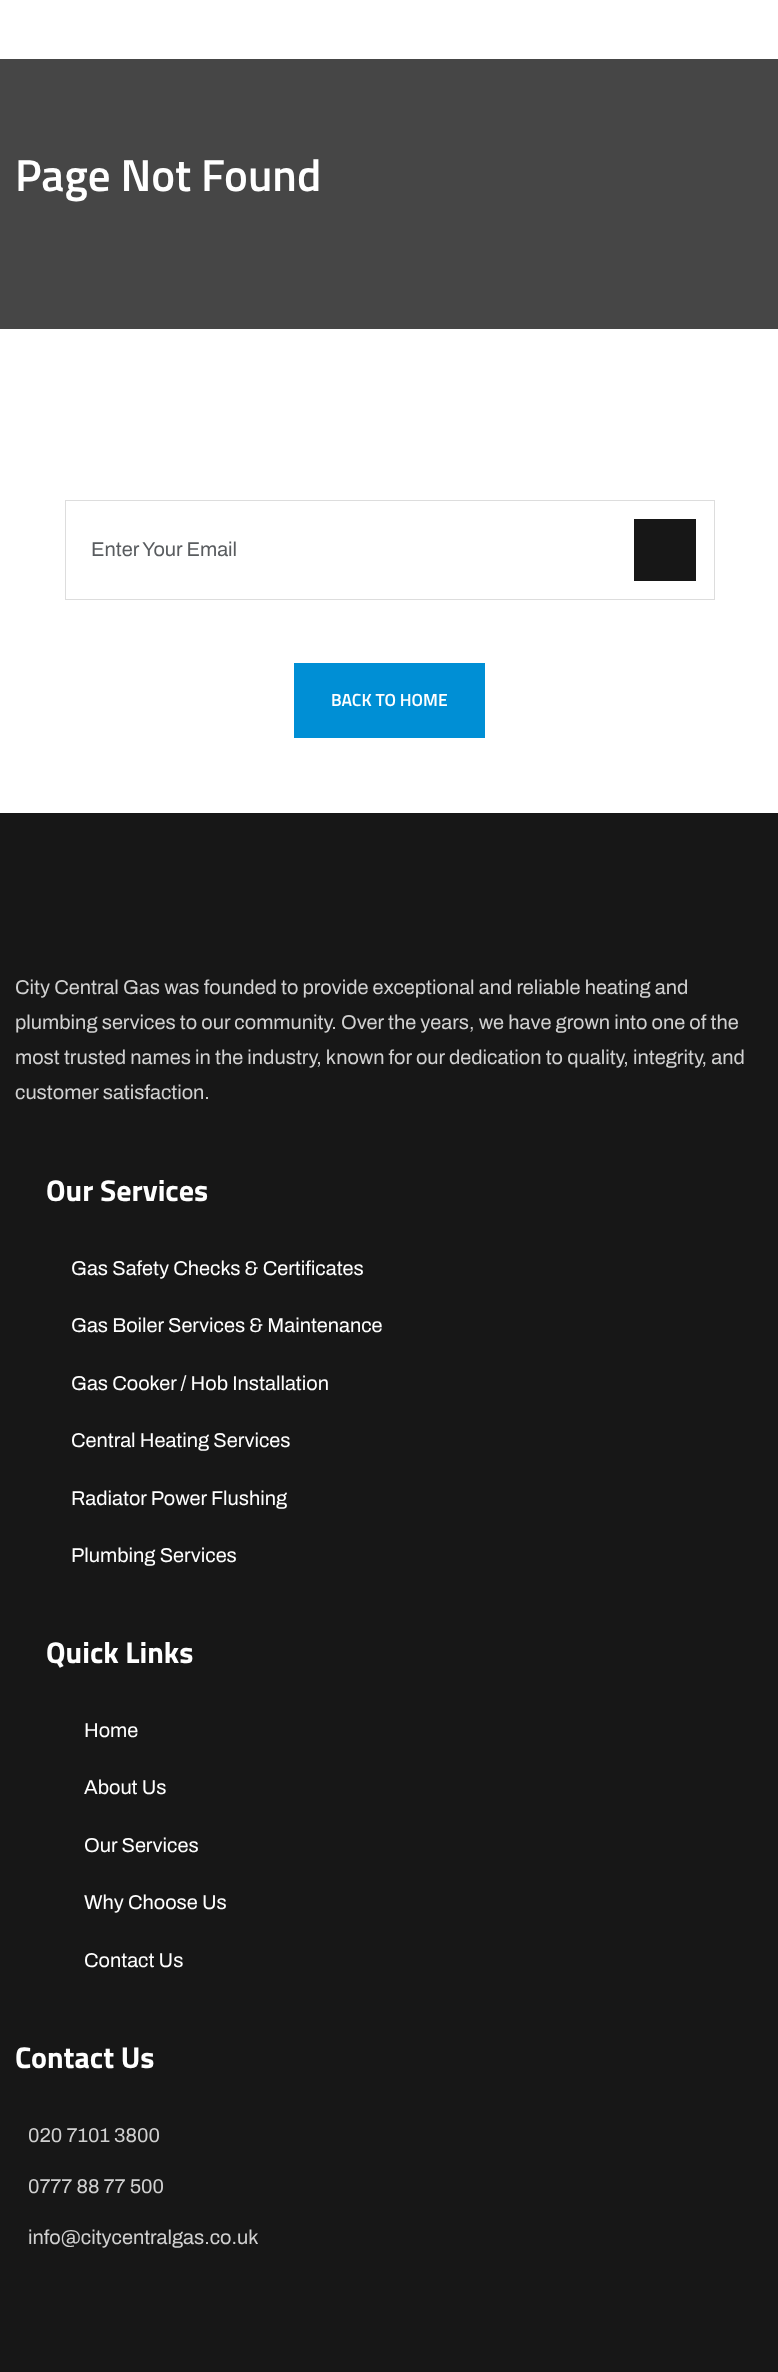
<?xml version="1.0" encoding="UTF-8"?>
<svg xmlns="http://www.w3.org/2000/svg" xmlns:xlink="http://www.w3.org/1999/xlink" width="778" height="2372">
  <rect width="100%" height="100%" fill="#ffffff" />
  <rect y="59" width="778" height="270" fill="#464646" />
  <rect x="65.5" y="500.5" width="649" height="99" fill="none" stroke="#dddddd" />
  <rect x="634" y="519" width="62" height="62" fill="#171717" />
  <rect x="294" y="663" width="191" height="75" fill="#008fd5" />
  <rect y="813" width="778" height="1559" fill="#171717" />
  <text x="15" y="191" style="font-family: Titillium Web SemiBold; font-size: 45px; font-weight: 600; fill: #ffffff">Page Not Found</text>
  <text x="91" y="556" style="font-family: Archivo; font-size: 20px; fill: #595c5f">Enter Your Email</text>
  <text x="331" y="706" style="font-family: Titillium Web SemiBold; font-size: 17.5px; font-weight: 600; fill: #ffffff">BACK TO HOME</text>
  <text x="15" y="994" style="font-family: Archivo; font-size: 20px; fill: #d1d1d1">City Central Gas was founded to provide exceptional and reliable heating and</text>
  <text x="15" y="1029" style="font-family: Archivo; font-size: 20px; fill: #d1d1d1">plumbing services to our community. Over the years, we have grown into one of the</text>
  <text x="15" y="1064" style="font-family: Archivo; font-size: 20px; fill: #d1d1d1">most trusted names in the industry, known for our dedication to quality, integrity, and</text>
  <text x="15" y="1099" style="font-family: Archivo; font-size: 20px; fill: #d1d1d1">customer satisfaction.</text>
  <text x="46" y="1201" style="font-family: Titillium Web; font-size: 30px; font-weight: bold; fill: #ffffff">Our Services</text>
  <text x="71" y="1275" style="font-family: Archivo; font-size: 20px; fill: #ffffff">Gas Safety Checks &amp; Certificates</text>
  <text x="71" y="1332" style="font-family: Archivo; font-size: 20px; fill: #ffffff">Gas Boiler Services &amp; Maintenance</text>
  <text x="71" y="1390" style="font-family: Archivo; font-size: 20px; fill: #ffffff">Gas Cooker / Hob Installation</text>
  <text x="71" y="1447" style="font-family: Archivo; font-size: 20px; fill: #ffffff">Central Heating Services</text>
  <text x="71" y="1505" style="font-family: Archivo; font-size: 20px; fill: #ffffff">Radiator Power Flushing</text>
  <text x="71" y="1562" style="font-family: Archivo; font-size: 20px; fill: #ffffff">Plumbing Services</text>
  <text x="46" y="1663" style="font-family: Titillium Web; font-size: 30px; font-weight: bold; fill: #ffffff">Quick Links</text>
  <text x="84" y="1737" style="font-family: Archivo; font-size: 20px; fill: #ffffff">Home</text>
  <text x="84" y="1794" style="font-family: Archivo; font-size: 20px; fill: #ffffff">About Us</text>
  <text x="84" y="1852" style="font-family: Archivo; font-size: 20px; fill: #ffffff">Our Services</text>
  <text x="84" y="1909" style="font-family: Archivo; font-size: 20px; fill: #ffffff">Why Choose Us</text>
  <text x="84" y="1967" style="font-family: Archivo; font-size: 20px; fill: #ffffff">Contact Us</text>
  <text x="15" y="2068" style="font-family: Titillium Web; font-size: 30px; font-weight: bold; fill: #ffffff">Contact Us</text>
  <text x="28" y="2142" style="font-family: Archivo; font-size: 20px; fill: #d1d1d1">020 7101 3800</text>
  <text x="28" y="2193" style="font-family: Archivo; font-size: 20px; fill: #d1d1d1">0777 88 77 500</text>
  <text x="28" y="2244" style="font-family: Archivo; font-size: 20px; fill: #d1d1d1">info@citycentralgas.co.uk</text>
</svg>
